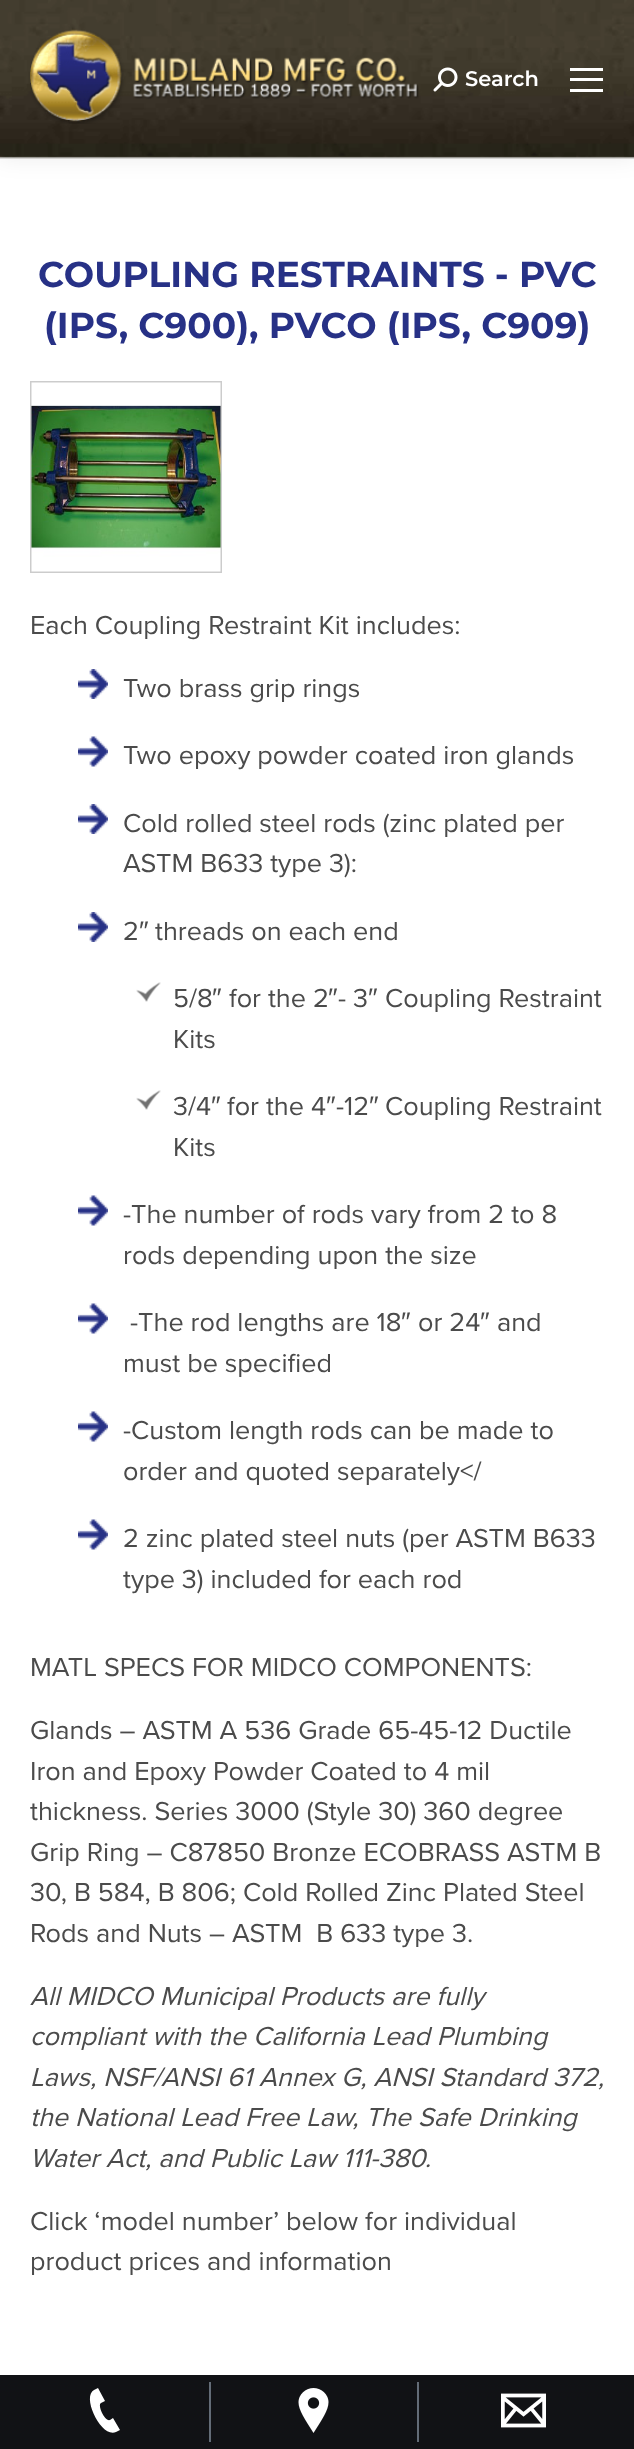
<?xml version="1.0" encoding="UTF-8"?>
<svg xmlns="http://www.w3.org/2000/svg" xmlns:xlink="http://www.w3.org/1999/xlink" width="634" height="2449">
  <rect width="100%" height="100%" fill="#ffffff" />
  <rect x="-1" y="-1" width="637" height="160" fill="#000000" fill-opacity="0.07" filter="blur(11px)" />
  <image x="0" y="0" width="634" height="159" xlink:href="image1.png" />
  <image x="30" y="29" width="389" height="95" xlink:href="image2.png" />
  <image x="433" y="67" width="25" height="25" xlink:href="image3.png" />
  <rect x="570" y="68" width="33" height="3" fill="#ffffff" />
  <rect x="570" y="78" width="33" height="3" fill="#ffffff" />
  <rect x="570" y="89" width="33" height="3" fill="#ffffff" />
  <rect x="31" y="382" width="190" height="190" fill="none" stroke="#cccccc" stroke-width="2" />
  <image x="31" y="382" width="190" height="190" xlink:href="image4.png" />
  <image x="78" y="669" width="30" height="30" xlink:href="image5.png" />
  <image x="78" y="736" width="30" height="31" xlink:href="image6.png" />
  <image x="78" y="804" width="30" height="30" xlink:href="image7.png" />
  <image x="78" y="912" width="30" height="30" xlink:href="image5.png" />
  <image x="136" y="982" width="25" height="20" xlink:href="image8.png" />
  <image x="136" y="1090" width="25" height="20" xlink:href="image8.png" />
  <image x="78" y="1195" width="30" height="31" xlink:href="image9.png" />
  <image x="78" y="1303" width="30" height="31" xlink:href="image6.png" />
  <image x="78" y="1411" width="30" height="31" xlink:href="image6.png" />
  <image x="78" y="1519" width="30" height="31" xlink:href="image10.png" />
  <rect y="2375" width="634" height="74" fill="#111215" />
  <path d="M 120 2430 l -7 -12 l -3 2 c -5 2 -13 -15 -9 -17 l 4 -2 l -7 -13 l -4 2 c -13 7 8 49 22 42 z" fill="#ffffff" />
  <rect x="209" y="2382" width="2" height="60" fill="#636c77" />
  <image x="298" y="2388" width="31" height="45" xlink:href="image11.png" />
  <rect x="417" y="2382" width="2" height="60" fill="#636c77" />
  <image x="501" y="2393" width="45" height="35" xlink:href="image12.png" />
  <text x="465" y="86" style="font-family: Montserrat; font-size: 21px; font-weight: 600; fill: #ffffff">Search</text>
  <text x="38" y="287" style="font-family: Montserrat; font-size: 36px; font-weight: bold; fill: #273186">COUPLING RESTRAINTS - PVC</text>
  <text x="44" y="338" style="font-family: Montserrat; font-size: 36px; font-weight: bold; fill: #273186">(IPS, C900), PVCO (IPS, C909)</text>
  <text x="30" y="634" style="font-family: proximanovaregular; font-size: 27px; fill: #4b4b4b">Each Coupling Restraint Kit includes:</text>
  <text x="123" y="697" style="font-family: proximanovaregular; font-size: 27px; fill: #4b4b4b">Two brass grip rings</text>
  <text x="123" y="764" style="font-family: proximanovaregular; font-size: 27px; fill: #4b4b4b">Two epoxy powder coated iron glands</text>
  <text x="123" y="832" style="font-family: proximanovaregular; font-size: 27px; fill: #4b4b4b">Cold rolled steel rods (zinc plated per</text>
  <text x="123" y="872" style="font-family: proximanovaregular; font-size: 27px; fill: #4b4b4b">ASTM B633 type 3):</text>
  <text x="123" y="940" style="font-family: proximanovaregular; font-size: 27px; fill: #4b4b4b">2</text>
  <text x="139" y="940" style="font-family: Liberation Sans; font-size: 27px; fill: #4b4b4b">″</text>
  <text x="155" y="940" style="font-family: proximanovaregular; font-size: 27px; fill: #4b4b4b">threads on each end</text>
  <text x="173" y="1007" style="font-family: proximanovaregular; font-size: 27px; fill: #4b4b4b">5/8</text>
  <text x="212" y="1007" style="font-family: Liberation Sans; font-size: 27px; fill: #4b4b4b">″</text>
  <text x="229" y="1007" style="font-family: proximanovaregular; font-size: 27px; fill: #4b4b4b">for the 2</text>
  <text x="328" y="1007" style="font-family: Liberation Sans; font-size: 27px; fill: #4b4b4b">″</text>
  <text x="338" y="1007" style="font-family: proximanovaregular; font-size: 27px; fill: #4b4b4b">- 3</text>
  <text x="368" y="1007" style="font-family: Liberation Sans; font-size: 27px; fill: #4b4b4b">″</text>
  <text x="385" y="1007" style="font-family: proximanovaregular; font-size: 27px; fill: #4b4b4b">Coupling Restraint</text>
  <text x="173" y="1048" style="font-family: proximanovaregular; font-size: 27px; fill: #4b4b4b">Kits</text>
  <text x="173" y="1115" style="font-family: proximanovaregular; font-size: 27px; fill: #4b4b4b">3/4</text>
  <text x="211" y="1115" style="font-family: Liberation Sans; font-size: 27px; fill: #4b4b4b">″</text>
  <text x="227" y="1115" style="font-family: proximanovaregular; font-size: 27px; fill: #4b4b4b">for the 4</text>
  <text x="326" y="1115" style="font-family: Liberation Sans; font-size: 27px; fill: #4b4b4b">″</text>
  <text x="336" y="1115" style="font-family: proximanovaregular; font-size: 27px; fill: #4b4b4b">-12</text>
  <text x="369" y="1115" style="font-family: Liberation Sans; font-size: 27px; fill: #4b4b4b">″</text>
  <text x="385" y="1115" style="font-family: proximanovaregular; font-size: 27px; fill: #4b4b4b">Coupling Restraint</text>
  <text x="173" y="1156" style="font-family: proximanovaregular; font-size: 27px; fill: #4b4b4b">Kits</text>
  <text x="123" y="1223" style="font-family: proximanovaregular; font-size: 27px; fill: #4b4b4b">-The number of rods vary from 2 to 8</text>
  <text x="123" y="1264" style="font-family: proximanovaregular; font-size: 27px; fill: #4b4b4b">rods depending upon the size</text>
  <text x="130" y="1331" style="font-family: proximanovaregular; font-size: 27px; fill: #4b4b4b">-The rod lengths are 18</text>
  <text x="401" y="1331" style="font-family: Liberation Sans; font-size: 27px; fill: #4b4b4b">″</text>
  <text x="418" y="1331" style="font-family: proximanovaregular; font-size: 27px; fill: #4b4b4b">or 24</text>
  <text x="480" y="1331" style="font-family: Liberation Sans; font-size: 27px; fill: #4b4b4b">″</text>
  <text x="497" y="1331" style="font-family: proximanovaregular; font-size: 27px; fill: #4b4b4b">and</text>
  <text x="123" y="1372" style="font-family: proximanovaregular; font-size: 27px; fill: #4b4b4b">must be specified</text>
  <text x="123" y="1439" style="font-family: proximanovaregular; font-size: 27px; fill: #4b4b4b">-Custom length rods can be made to</text>
  <text x="123" y="1480" style="font-family: proximanovaregular; font-size: 27px; fill: #4b4b4b">order and quoted separately&lt;/</text>
  <text x="123" y="1547" style="font-family: proximanovaregular; font-size: 27px; fill: #4b4b4b">2 zinc plated steel nuts (per ASTM B633</text>
  <text x="123" y="1588" style="font-family: proximanovaregular; font-size: 27px; fill: #4b4b4b">type 3) included for each rod</text>
  <text x="30" y="1676" style="font-family: proximanovaregular; font-size: 27px; fill: #4b4b4b">MATL SPECS FOR MIDCO COMPONENTS:</text>
  <text x="30" y="1739" style="font-family: proximanovaregular; font-size: 27px; fill: #4b4b4b">Glands – ASTM A 536 Grade 65-45-12 Ductile</text>
  <text x="30" y="1780" style="font-family: proximanovaregular; font-size: 27px; fill: #4b4b4b">Iron and Epoxy Powder Coated to 4 mil</text>
  <text x="30" y="1820" style="font-family: proximanovaregular; font-size: 27px; fill: #4b4b4b">thickness. Series 3000 (Style 30) 360 degree</text>
  <text x="30" y="1861" style="font-family: proximanovaregular; font-size: 27px; fill: #4b4b4b">Grip Ring – C87850 Bronze ECOBRASS ASTM B</text>
  <text x="30" y="1901" style="font-family: proximanovaregular; font-size: 27px; fill: #4b4b4b">30, B 584, B 806; Cold Rolled Zinc Plated Steel</text>
  <text x="30" y="1942" style="font-family: proximanovaregular; font-size: 27px; fill: #4b4b4b" xml:space="preserve">Rods and Nuts – ASTM  B 633 type 3.</text>
  <text x="30" y="2005" style="font-family: proximanovaregular; font-size: 27px; font-style: italic; fill: #4b4b4b">All MIDCO Municipal Products are fully</text>
  <text x="30" y="2045" style="font-family: proximanovaregular; font-size: 27px; font-style: italic; fill: #4b4b4b">compliant with the California Lead Plumbing</text>
  <text x="30" y="2086" style="font-family: proximanovaregular; font-size: 27px; font-style: italic; fill: #4b4b4b">Laws, NSF/ANSI 61 Annex G, ANSI Standard 372,</text>
  <text x="30" y="2126" style="font-family: proximanovaregular; font-size: 27px; font-style: italic; fill: #4b4b4b">the National Lead Free Law, The Safe Drinking</text>
  <text x="30" y="2167" style="font-family: proximanovaregular; font-size: 27px; font-style: italic; fill: #4b4b4b">Water Act, and Public Law 111-380.</text>
  <text x="30" y="2230" style="font-family: proximanovaregular; font-size: 27px; fill: #4b4b4b">Click ‘model number’ below for individual</text>
  <text x="30" y="2270" style="font-family: proximanovaregular; font-size: 27px; fill: #4b4b4b">product prices and information</text>
</svg>
